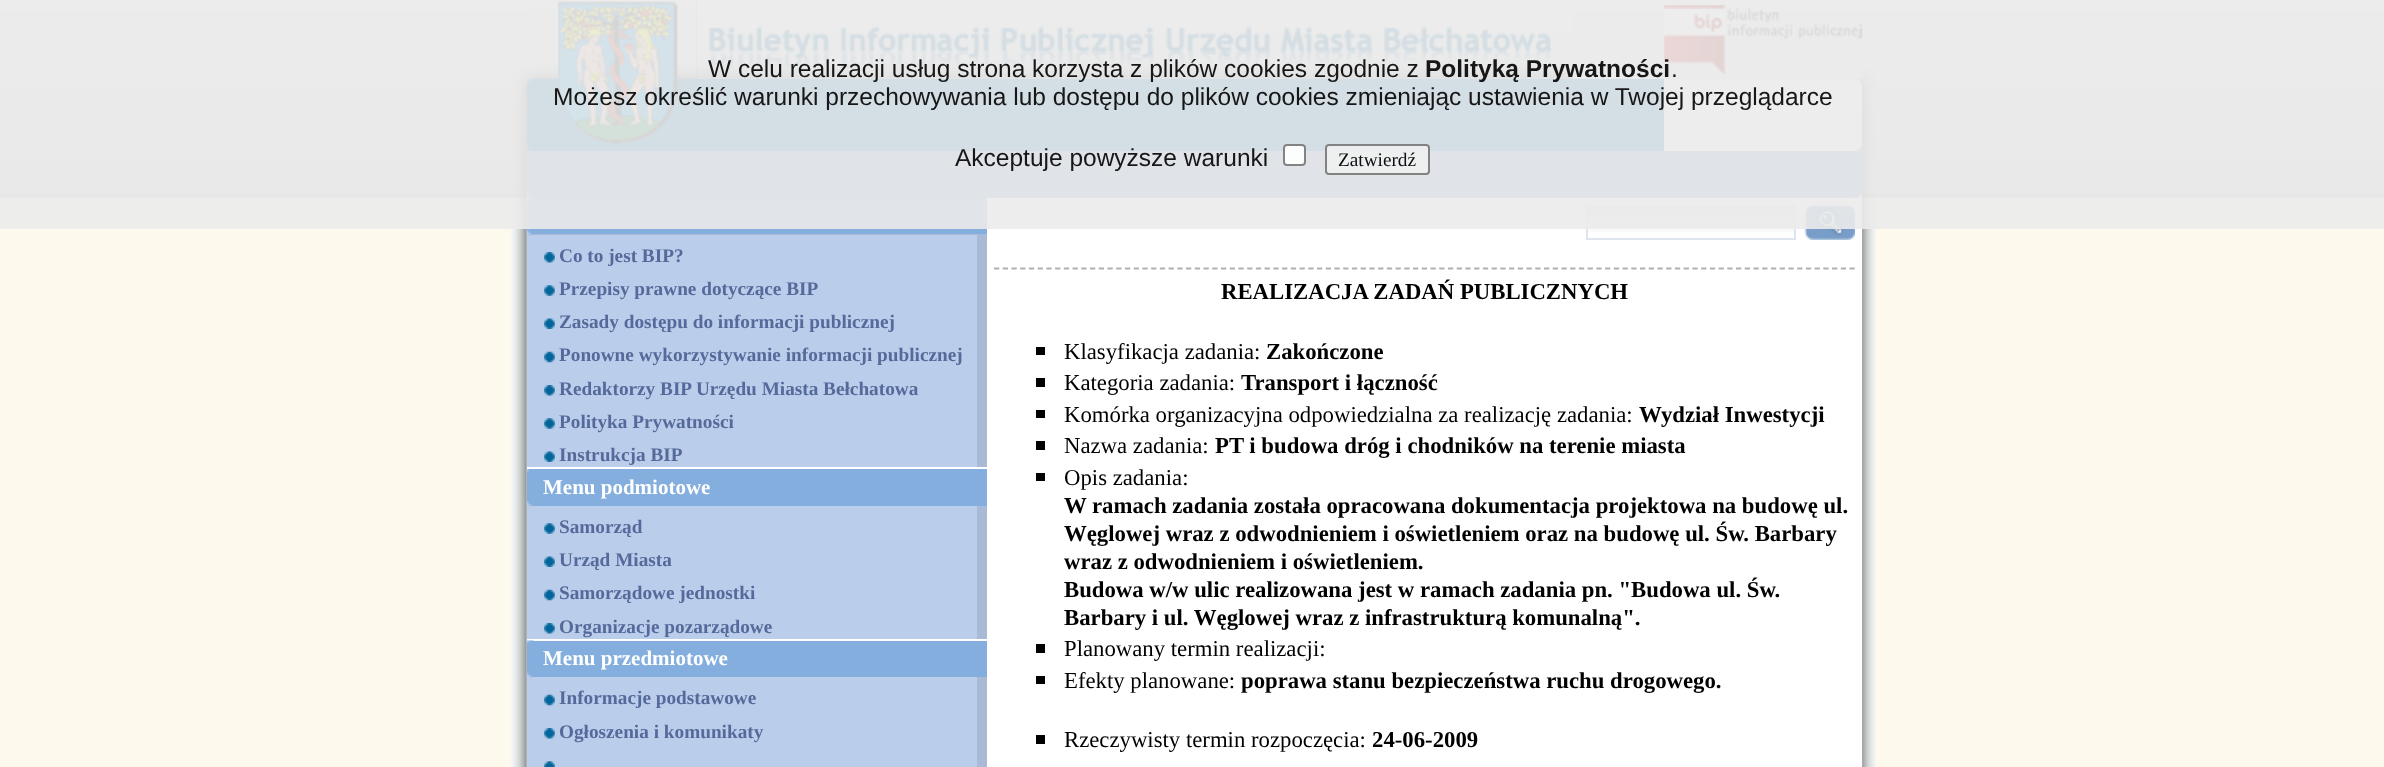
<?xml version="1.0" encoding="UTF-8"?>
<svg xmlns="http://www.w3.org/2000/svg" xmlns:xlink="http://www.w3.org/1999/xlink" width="2384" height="767">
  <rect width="100%" height="100%" fill="#fdf9ed" />
  <image x="0" y="0" width="2384" height="198" xlink:href="image1.png" />
  <rect x="527" width="170" height="151" fill="#006aaf" />
  <image x="511" y="197" width="16" height="570" xlink:href="image12.png" />
  <image x="511" y="67" width="16" height="131" xlink:href="image5.png" />
  <image x="526" y="0" width="171" height="144" xlink:href="image2.png" />
  <image x="696" y="0" width="878" height="79" xlink:href="image3.png" />
  <image x="1664" y="5" width="198" height="71" xlink:href="image4.png" />
  <image x="1862" y="197" width="14" height="570" xlink:href="image26.png" />
  <image x="1862" y="67" width="14" height="131" xlink:href="image6.png" />
  <rect x="697" y="79" width="967" height="72" fill="#006aaf" />
  <rect x="1664" y="79" width="198" height="72" fill="#ffffff" />
  <image x="1855" y="78" width="7" height="6" xlink:href="image7.png" />
  <image x="526" y="143" width="8" height="8" xlink:href="image8.png" />
  <image x="1855" y="143" width="7" height="8" xlink:href="image9.png" />
  <rect x="527" y="151" width="1335" height="40" fill="#789dc8" />
  <image x="526" y="191" width="8" height="7" xlink:href="image10.png" />
  <rect x="534" y="191" width="1321" height="7" fill="#789dc8" />
  <image x="1855" y="191" width="7" height="7" xlink:href="image11.png" />
  <rect x="527" y="198" width="460" height="5" fill="#84aedd" />
  <image x="526" y="197" width="8" height="6" xlink:href="image13.png" />
  <rect x="527" y="203" width="460" height="26" fill="#84aedd" />
  <rect x="987" y="198" width="875" height="569" fill="#ffffff" />
  <image x="1585" y="206" width="209" height="26" xlink:href="image24.png" />
  <rect x="1587" y="206" width="208" height="33" fill="none" stroke="#dee5ef" stroke-width="2" />
  <image x="1804" y="204" width="51" height="36" xlink:href="image25.png" />
  <rect width="2384" height="229" fill="#ebebeb" fill-opacity="0.9" />
  <rect x="1283" y="144" width="23" height="22" rx="4" fill="#ffffff" fill-opacity="0.9" />
  <rect x="1284" y="145" width="21" height="20" rx="3" fill="none" stroke="#767676" stroke-opacity="0.9" stroke-width="2" />
  <rect x="1325" y="144" width="105" height="31" rx="4" fill="#efefef" fill-opacity="0.9" />
  <rect x="1326" y="145" width="103" height="29" rx="3" fill="none" stroke="#767676" stroke-opacity="0.9" stroke-width="2" />
  <rect x="527" y="234" width="460" height="533" fill="#a8bad5" />
  <rect x="527" y="229" width="460" height="5" fill="#84aedd" />
  <image x="526" y="229" width="8" height="6" xlink:href="image14.png" />
  <rect x="527" y="235" width="450" height="7" fill="#baceeb" />
  <rect x="527" y="242" width="450" height="26" fill="#baceeb" />
  <image x="544" y="252" width="11" height="11" xlink:href="image15.png" />
  <rect x="527" y="268" width="450" height="7" fill="#baceeb" />
  <rect x="527" y="275" width="450" height="26" fill="#baceeb" />
  <image x="544" y="285" width="11" height="11" xlink:href="image16.png" />
  <rect x="527" y="301" width="450" height="7" fill="#baceeb" />
  <rect x="527" y="308" width="450" height="26" fill="#baceeb" />
  <image x="544" y="318" width="11" height="11" xlink:href="image17.png" />
  <rect x="527" y="334" width="450" height="7" fill="#baceeb" />
  <rect x="527" y="341" width="450" height="27" fill="#baceeb" />
  <image x="544" y="351" width="11" height="12" xlink:href="image18.png" />
  <rect x="527" y="368" width="450" height="7" fill="#baceeb" />
  <rect x="527" y="375" width="450" height="26" fill="#baceeb" />
  <image x="544" y="385" width="11" height="11" xlink:href="image15.png" />
  <rect x="527" y="401" width="450" height="7" fill="#baceeb" />
  <rect x="527" y="408" width="450" height="26" fill="#baceeb" />
  <image x="544" y="418" width="11" height="11" xlink:href="image16.png" />
  <rect x="527" y="434" width="450" height="7" fill="#baceeb" />
  <rect x="527" y="441" width="450" height="26" fill="#baceeb" />
  <image x="544" y="451" width="11" height="11" xlink:href="image17.png" />
  <rect x="527" y="467" width="460" height="2" fill="#ffffff" />
  <rect x="527" y="469" width="460" height="5" fill="#84aedd" />
  <image x="526" y="469" width="3" height="5" xlink:href="image19.png" />
  <rect x="527" y="474" width="460" height="27" fill="#84aedd" />
  <rect x="527" y="501" width="460" height="5" fill="#84aedd" />
  <image x="526" y="500" width="7" height="6" xlink:href="image20.png" />
  <rect x="527" y="506" width="450" height="7" fill="#baceeb" />
  <rect x="527" y="513" width="450" height="26" fill="#baceeb" />
  <image x="544" y="523" width="11" height="11" xlink:href="image16.png" />
  <rect x="527" y="539" width="450" height="7" fill="#baceeb" />
  <rect x="527" y="546" width="450" height="26" fill="#baceeb" />
  <image x="544" y="556" width="11" height="11" xlink:href="image17.png" />
  <rect x="527" y="572" width="450" height="7" fill="#baceeb" />
  <rect x="527" y="579" width="450" height="27" fill="#baceeb" />
  <image x="544" y="589" width="11" height="12" xlink:href="image18.png" />
  <rect x="527" y="606" width="450" height="7" fill="#baceeb" />
  <rect x="527" y="613" width="450" height="26" fill="#baceeb" />
  <image x="544" y="623" width="11" height="11" xlink:href="image15.png" />
  <rect x="527" y="639" width="460" height="2" fill="#ffffff" />
  <rect x="527" y="641" width="460" height="5" fill="#84aedd" />
  <image x="526" y="640" width="8" height="6" xlink:href="image21.png" />
  <rect x="527" y="646" width="460" height="26" fill="#84aedd" />
  <rect x="527" y="672" width="460" height="5" fill="#84aedd" />
  <rect x="527" y="677" width="450" height="7" fill="#baceeb" />
  <image x="526" y="672" width="8" height="6" xlink:href="image22.png" />
  <rect x="527" y="684" width="450" height="27" fill="#baceeb" />
  <image x="544" y="694" width="11" height="12" xlink:href="image18.png" />
  <rect x="527" y="711" width="450" height="7" fill="#baceeb" />
  <rect x="527" y="718" width="450" height="26" fill="#baceeb" />
  <image x="544" y="728" width="11" height="11" xlink:href="image15.png" />
  <rect x="527" y="744" width="450" height="7" fill="#baceeb" />
  <rect x="527" y="751" width="450" height="16" fill="#baceeb" />
  <image x="544" y="761" width="11" height="6" xlink:href="image23.png" />
  <path d="M 994 268.5 h 861" fill="none" stroke="#b0b0b0" stroke-width="1.8" stroke-dasharray="5.25 3.48" />
  <rect x="1036" y="347" width="9" height="8" fill="#000000" />
  <rect x="1036" y="378" width="9" height="9" fill="#000000" />
  <rect x="1036" y="410" width="9" height="8" fill="#000000" />
  <rect x="1036" y="441" width="9" height="9" fill="#000000" />
  <rect x="1036" y="473" width="9" height="8" fill="#000000" />
  <rect x="1036" y="644" width="9" height="9" fill="#000000" />
  <rect x="1036" y="676" width="9" height="8" fill="#000000" />
  <rect x="1036" y="735" width="9" height="9" fill="#000000" />
  <text x="708" y="77" style="font-family: Liberation Sans; font-size: 24.5px; fill: #171717">W celu realizacji usług strona korzysta z plików cookies zgodnie z</text>
  <text x="1425" y="77" style="font-family: Liberation Sans; font-size: 24.5px; font-weight: bold; fill: #171717">Polityką Prywatności</text>
  <text x="1671" y="77" style="font-family: Liberation Sans; font-size: 24.5px; fill: #171717">.</text>
  <text x="553" y="105" style="font-family: Liberation Sans; font-size: 24.5px; fill: #171717">Możesz określić warunki przechowywania lub dostępu do plików cookies zmieniając ustawienia w Twojej przeglądarce</text>
  <text x="955" y="166" style="font-family: Liberation Sans; font-size: 24.5px; fill: #171717">Akceptuje powyższe warunki</text>
  <text x="1338" y="166" style="font-family: Liberation Serif; font-size: 19.25px; fill: #0c1014">Zatwierdź</text>
  <text x="559" y="262" style="font-family: Liberation Serif; font-size: 19.25px; font-weight: bold; fill: #556a9a">Co to jest BIP?</text>
  <text x="559" y="295" style="font-family: Liberation Serif; font-size: 19.25px; font-weight: bold; fill: #556a9a">Przepisy prawne dotyczące BIP</text>
  <text x="559" y="328" style="font-family: Liberation Serif; font-size: 19.25px; font-weight: bold; fill: #556a9a">Zasady dostępu do informacji publicznej</text>
  <text x="559" y="361" style="font-family: Liberation Serif; font-size: 19.25px; font-weight: bold; fill: #556a9a">Ponowne wykorzystywanie informacji publicznej</text>
  <text x="559" y="395" style="font-family: Liberation Serif; font-size: 19.25px; font-weight: bold; fill: #556a9a">Redaktorzy BIP Urzędu Miasta Bełchatowa</text>
  <text x="559" y="428" style="font-family: Liberation Serif; font-size: 19.25px; font-weight: bold; fill: #556a9a">Polityka Prywatności</text>
  <text x="559" y="461" style="font-family: Liberation Serif; font-size: 19.25px; font-weight: bold; fill: #556a9a">Instrukcja BIP</text>
  <text x="543" y="494" style="font-family: Liberation Serif; font-size: 21px; font-weight: bold; fill: #ffffff">Menu podmiotowe</text>
  <text x="559" y="533" style="font-family: Liberation Serif; font-size: 19.25px; font-weight: bold; fill: #556a9a">Samorząd</text>
  <text x="559" y="566" style="font-family: Liberation Serif; font-size: 19.25px; font-weight: bold; fill: #556a9a">Urząd Miasta</text>
  <text x="559" y="599" style="font-family: Liberation Serif; font-size: 19.25px; font-weight: bold; fill: #556a9a">Samorządowe jednostki</text>
  <text x="559" y="633" style="font-family: Liberation Serif; font-size: 19.25px; font-weight: bold; fill: #556a9a">Organizacje pozarządowe</text>
  <text x="543" y="665" style="font-family: Liberation Serif; font-size: 21px; font-weight: bold; fill: #ffffff">Menu przedmiotowe</text>
  <text x="559" y="704" style="font-family: Liberation Serif; font-size: 19.25px; font-weight: bold; fill: #556a9a">Informacje podstawowe</text>
  <text x="559" y="738" style="font-family: Liberation Serif; font-size: 19.25px; font-weight: bold; fill: #556a9a">Ogłoszenia i komunikaty</text>
  <text x="1221" y="299" style="font-family: Liberation Serif; font-size: 22.75px; font-weight: bold; fill: #000000">REALIZACJA ZADAŃ PUBLICZNYCH</text>
  <text x="1064" y="359" style="font-family: Liberation Serif; font-size: 22.75px; fill: #000000">Klasyfikacja zadania:</text>
  <text x="1266" y="359" style="font-family: Liberation Serif; font-size: 22.75px; font-weight: bold; fill: #000000">Zakończone</text>
  <text x="1064" y="390" style="font-family: Liberation Serif; font-size: 22.75px; fill: #000000">Kategoria zadania:</text>
  <text x="1241" y="390" style="font-family: Liberation Serif; font-size: 22.75px; font-weight: bold; fill: #000000">Transport i łączność</text>
  <text x="1064" y="422" style="font-family: Liberation Serif; font-size: 22.75px; fill: #000000">Komórka organizacyjna odpowiedzialna za realizację zadania:</text>
  <text x="1639" y="422" style="font-family: Liberation Serif; font-size: 22.75px; font-weight: bold; fill: #000000">Wydział Inwestycji</text>
  <text x="1064" y="453" style="font-family: Liberation Serif; font-size: 22.75px; fill: #000000">Nazwa zadania:</text>
  <text x="1215" y="453" style="font-family: Liberation Serif; font-size: 22.75px; font-weight: bold; fill: #000000">PT i budowa dróg i chodników na terenie miasta</text>
  <text x="1064" y="485" style="font-family: Liberation Serif; font-size: 22.75px; fill: #000000">Opis zadania:</text>
  <text x="1064" y="513" style="font-family: Liberation Serif; font-size: 22.75px; font-weight: bold; fill: #000000">W ramach zadania została opracowana dokumentacja projektowa na budowę ul.</text>
  <text x="1064" y="541" style="font-family: Liberation Serif; font-size: 22.75px; font-weight: bold; fill: #000000">Węglowej wraz z odwodnieniem i oświetleniem oraz na budowę ul. Św. Barbary</text>
  <text x="1064" y="569" style="font-family: Liberation Serif; font-size: 22.75px; font-weight: bold; fill: #000000">wraz z odwodnieniem i oświetleniem.</text>
  <text x="1064" y="597" style="font-family: Liberation Serif; font-size: 22.75px; font-weight: bold; fill: #000000">Budowa w/w ulic realizowana jest w ramach zadania pn. "Budowa ul. Św.</text>
  <text x="1064" y="625" style="font-family: Liberation Serif; font-size: 22.75px; font-weight: bold; fill: #000000">Barbary i ul. Węglowej wraz z infrastrukturą komunalną".</text>
  <text x="1064" y="656" style="font-family: Liberation Serif; font-size: 22.75px; fill: #000000">Planowany termin realizacji:</text>
  <text x="1064" y="688" style="font-family: Liberation Serif; font-size: 22.75px; fill: #000000">Efekty planowane:</text>
  <text x="1241" y="688" style="font-family: Liberation Serif; font-size: 22.75px; font-weight: bold; fill: #000000">poprawa stanu bezpieczeństwa ruchu drogowego.</text>
  <text x="1064" y="747" style="font-family: Liberation Serif; font-size: 22.75px; fill: #000000">Rzeczywisty termin rozpoczęcia:</text>
  <text x="1372" y="747" style="font-family: Liberation Serif; font-size: 22.75px; font-weight: bold; fill: #000000">24-06-2009</text>
</svg>
